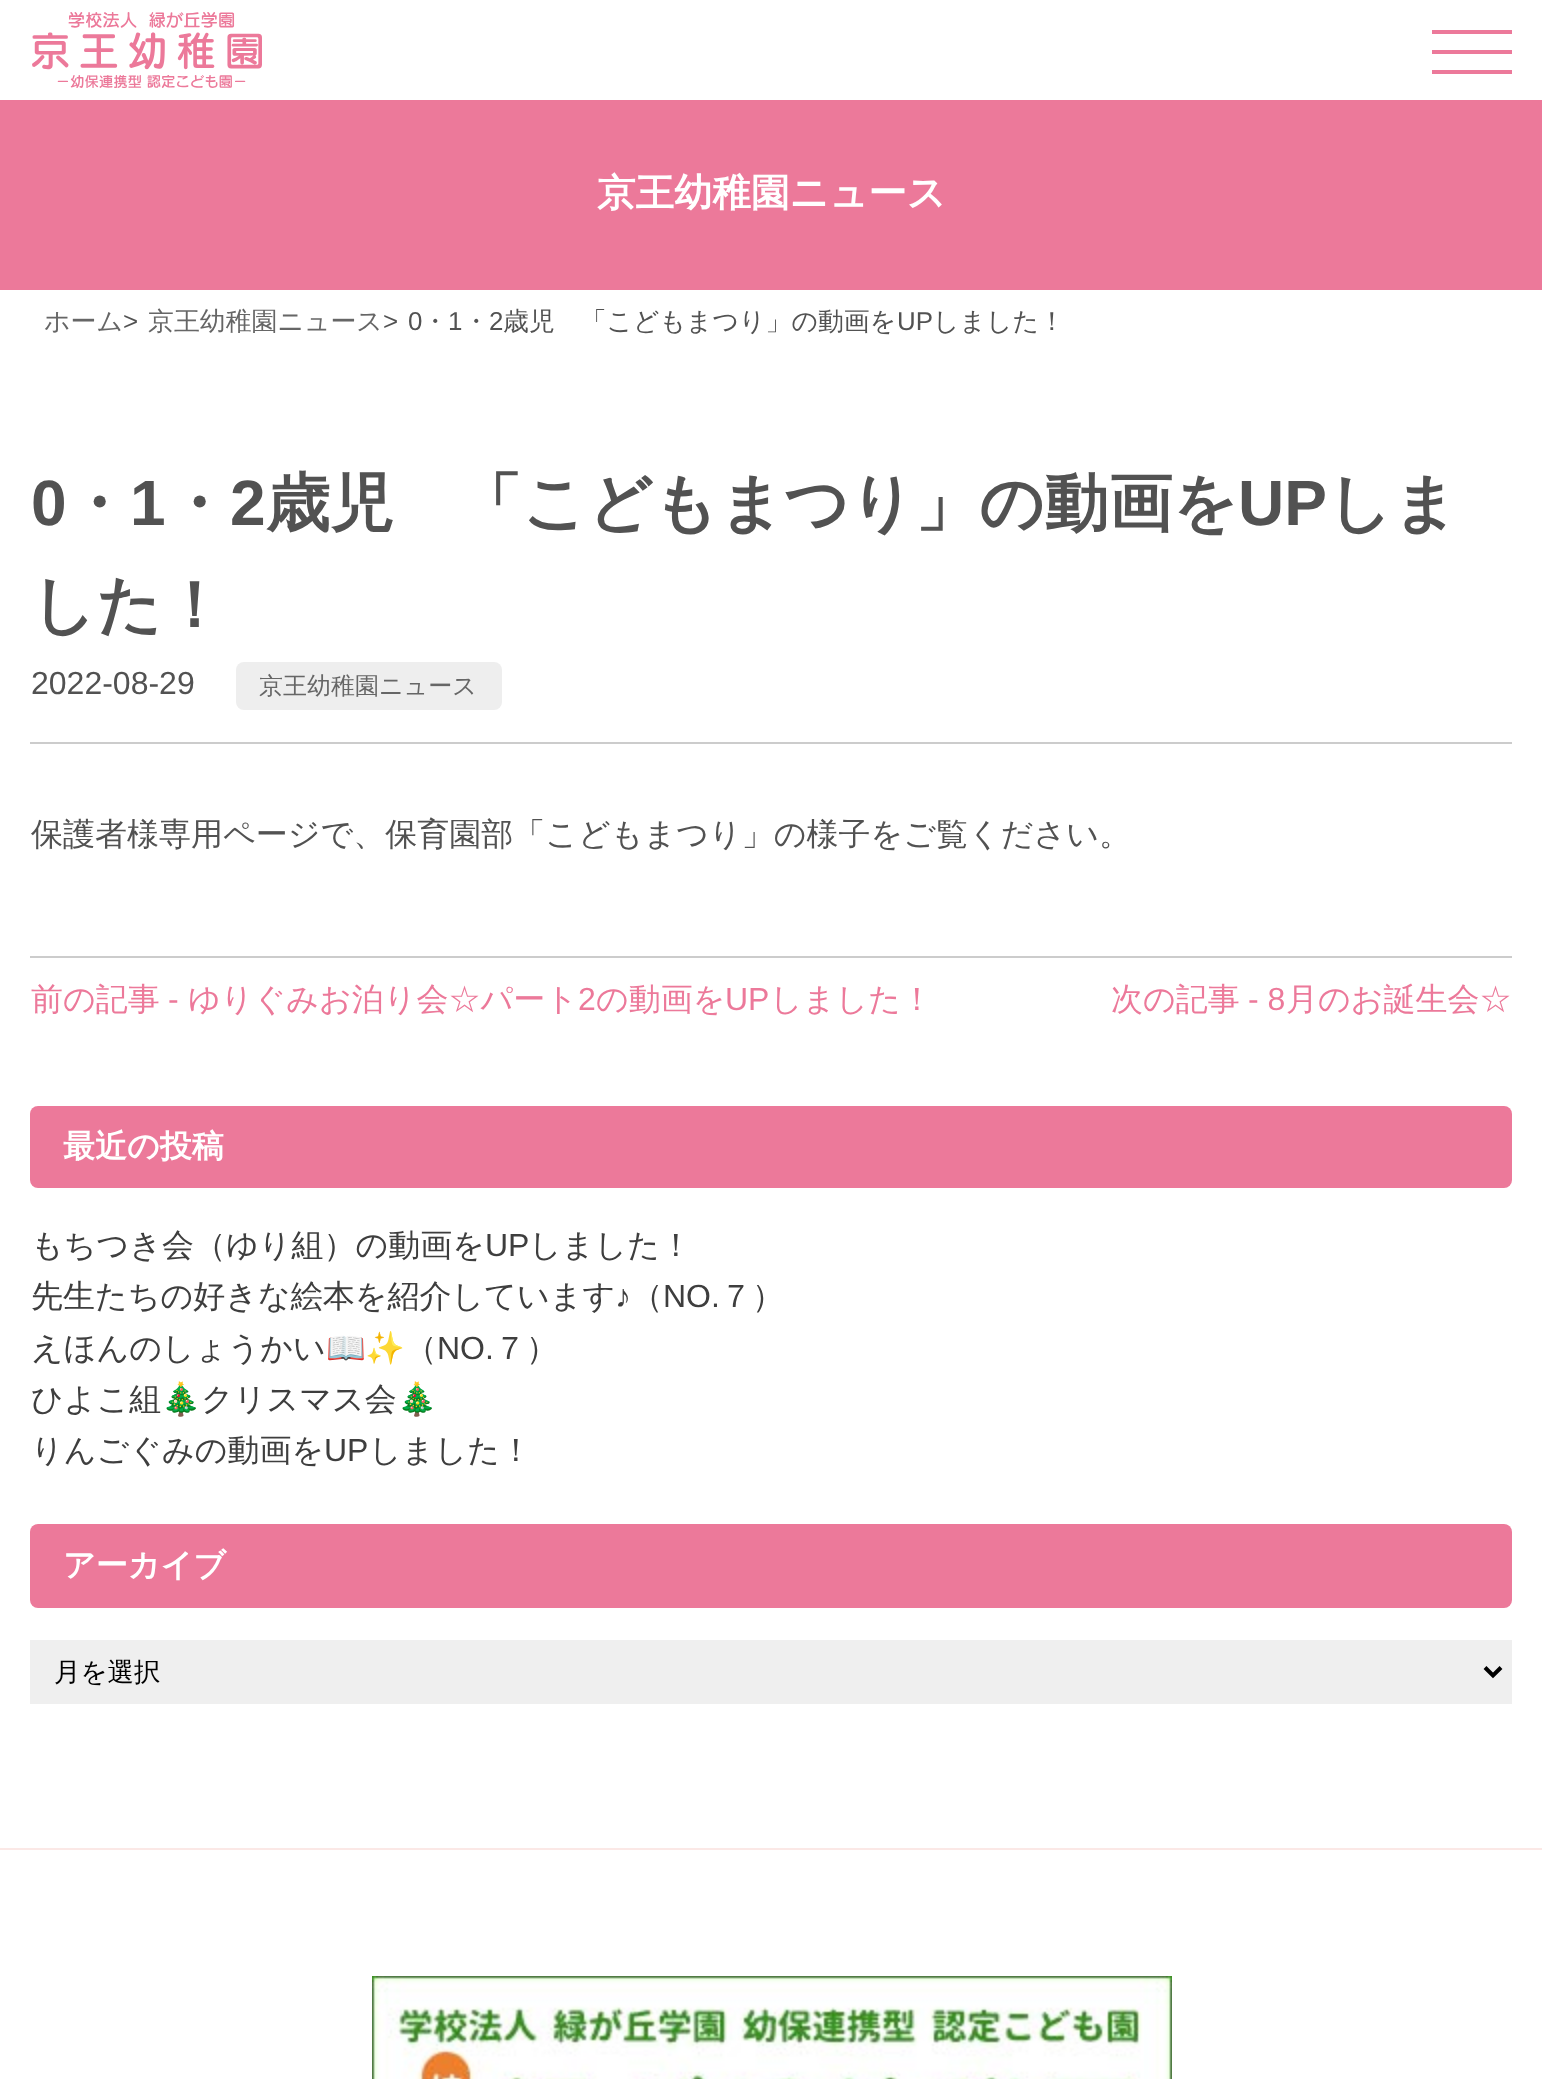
<?xml version="1.0" encoding="UTF-8"?>
<svg xmlns="http://www.w3.org/2000/svg" xmlns:xlink="http://www.w3.org/1999/xlink" width="1542" height="2079">
  <rect width="100%" height="100%" fill="#ffffff" />
  <image x="32" y="12" width="230" height="76" xlink:href="image1.png" />
  <rect x="1432" y="30" width="80" height="4" fill="#ec799a" />
  <rect x="1432" y="50" width="80" height="4" fill="#ec799a" />
  <rect x="1432" y="70" width="80" height="4" fill="#ec799a" />
  <rect y="100" width="1542" height="190" fill="#ec799a" />
  <rect x="30" y="742" width="1482" height="2" fill="#cccccc" />
  <rect x="236" y="662" width="266" height="48" rx="8" fill="#eeeeee" />
  <rect x="30" y="956" width="1482" height="2" fill="#cccccc" />
  <rect x="30" y="1106" width="1482" height="82" rx="8" fill="#ec799a" />
  <rect x="30" y="1524" width="1482" height="84" rx="8" fill="#ec799a" />
  <rect x="30" y="1640" width="1482" height="64" fill="#efefef" />
  <path d="M 1485 1667.5 l 8 8 l 8 -8" fill="none" stroke="#000000" stroke-width="4" />
  <rect y="1848" width="1542" height="2" fill="#fbe8e6" />
  <image x="372" y="1976" width="800" height="103" xlink:href="image2.png" />
  <text x="597" y="206" style="font-family: WenQuanYi Zen Hei; font-size: 38.5px; font-weight: bold; fill: #ffffff">京王幼稚園ニュース</text>
  <text x="44" y="330" style="font-family: WenQuanYi Zen Hei; font-size: 25.9px; font-weight: 500; fill: #666666">ホーム</text>
  <text x="123" y="330" style="font-family: Liberation Sans; font-size: 25.9px; fill: #525252">&gt;</text>
  <text x="148" y="330" style="font-family: WenQuanYi Zen Hei; font-size: 25.9px; font-weight: 500; fill: #666666">京王幼稚園ニュース</text>
  <text x="383" y="330" style="font-family: Liberation Sans; font-size: 25.9px; fill: #525252">&gt;</text>
  <text x="408" y="330" style="font-family: Liberation Sans; font-size: 25.9px; fill: #525252">0</text>
  <text x="422" y="330" style="font-family: WenQuanYi Zen Hei; font-size: 25.9px; font-weight: 500; fill: #525252">・</text>
  <text x="448" y="330" style="font-family: Liberation Sans; font-size: 25.9px; fill: #525252">1</text>
  <text x="463" y="330" style="font-family: WenQuanYi Zen Hei; font-size: 25.9px; font-weight: 500; fill: #525252">・</text>
  <text x="489" y="330" style="font-family: Liberation Sans; font-size: 25.9px; fill: #525252">2</text>
  <text x="503" y="330" style="font-family: WenQuanYi Zen Hei; font-size: 25.9px; font-weight: 500; fill: #525252">歳児　「こどもまつり」の動画を</text>
  <text x="897" y="330" style="font-family: Liberation Sans; font-size: 25.9px; fill: #525252">UP</text>
  <text x="933" y="330" style="font-family: WenQuanYi Zen Hei; font-size: 25.9px; font-weight: 500; fill: #525252">しました！</text>
  <text x="31" y="525" style="font-family: Liberation Sans; font-size: 64px; font-weight: bold; fill: #525252">0</text>
  <text x="66" y="525" style="font-family: WenQuanYi Zen Hei; font-size: 64px; font-weight: bold; fill: #525252">・</text>
  <text x="130" y="525" style="font-family: Liberation Sans; font-size: 64px; font-weight: bold; fill: #525252">1</text>
  <text x="166" y="525" style="font-family: WenQuanYi Zen Hei; font-size: 64px; font-weight: bold; fill: #525252">・</text>
  <text x="230" y="525" style="font-family: Liberation Sans; font-size: 64px; font-weight: bold; fill: #525252">2</text>
  <text x="266" y="525" style="font-family: WenQuanYi Zen Hei; font-size: 64px; font-weight: bold; fill: #525252">歳児　「こどもまつり」の動画を</text>
  <text x="1238" y="525" style="font-family: Liberation Sans; font-size: 64px; font-weight: bold; fill: #525252">UP</text>
  <text x="1327" y="525" style="font-family: WenQuanYi Zen Hei; font-size: 64px; font-weight: bold; fill: #525252">しま</text>
  <text x="31" y="627" style="font-family: WenQuanYi Zen Hei; font-size: 64px; font-weight: bold; fill: #525252">した！</text>
  <text x="31" y="694" style="font-family: Liberation Sans; font-size: 32px; fill: #525252">2022-08-29</text>
  <text x="259" y="694" style="font-family: WenQuanYi Zen Hei; font-size: 24px; font-weight: 500; fill: #666666">京王幼稚園ニュース</text>
  <text x="31" y="845" style="font-family: WenQuanYi Zen Hei; font-size: 32px; font-weight: 500; fill: #525252">保護者様専用ページで、保育園部「こどもまつり」の様子をご覧ください。</text>
  <text x="31" y="1010" style="font-family: WenQuanYi Zen Hei; font-size: 32px; font-weight: 500; fill: #ec799a">前の記事</text>
  <text x="168" y="1010" style="font-family: Liberation Sans; font-size: 32px; fill: #ec799a">-</text>
  <text x="188" y="1010" style="font-family: WenQuanYi Zen Hei; font-size: 32px; font-weight: 500; fill: #ec799a">ゆりぐみお泊り会☆パート</text>
  <text x="578" y="1010" style="font-family: Liberation Sans; font-size: 32px; fill: #ec799a">2</text>
  <text x="596" y="1010" style="font-family: WenQuanYi Zen Hei; font-size: 32px; font-weight: 500; fill: #ec799a">の動画を</text>
  <text x="725" y="1010" style="font-family: Liberation Sans; font-size: 32px; fill: #ec799a">UP</text>
  <text x="770" y="1010" style="font-family: WenQuanYi Zen Hei; font-size: 32px; font-weight: 500; fill: #ec799a">しました！</text>
  <text x="1111" y="1010" style="font-family: WenQuanYi Zen Hei; font-size: 32px; font-weight: 500; fill: #ec799a">次の記事</text>
  <text x="1248" y="1010" style="font-family: Liberation Sans; font-size: 32px; fill: #ec799a">- 8</text>
  <text x="1286" y="1010" style="font-family: WenQuanYi Zen Hei; font-size: 32px; font-weight: 500; fill: #ec799a">月のお誕生会☆</text>
  <text x="63" y="1157" style="font-family: WenQuanYi Zen Hei; font-size: 32px; font-weight: bold; fill: #ffffff">最近の投稿</text>
  <text x="31" y="1256" style="font-family: WenQuanYi Zen Hei; font-size: 32px; font-weight: 500; fill: #3e3e3e">もちつき会（ゆり組）の動画を</text>
  <text x="485" y="1256" style="font-family: Liberation Sans; font-size: 32px; fill: #3e3e3e">UP</text>
  <text x="529" y="1256" style="font-family: WenQuanYi Zen Hei; font-size: 32px; font-weight: 500; fill: #3e3e3e">しました！</text>
  <text x="31" y="1307" style="font-family: WenQuanYi Zen Hei; font-size: 32px; font-weight: 500; fill: #3e3e3e">先生たちの好きな絵本を紹介しています</text>
  <text x="615" y="1307" style="font-family: Liberation Sans; font-size: 32px; fill: #3e3e3e">♪</text>
  <text x="631" y="1307" style="font-family: WenQuanYi Zen Hei; font-size: 32px; font-weight: 500; fill: #3e3e3e">（</text>
  <text x="663" y="1307" style="font-family: Liberation Sans; font-size: 32px; fill: #3e3e3e">NO.</text>
  <text x="720" y="1307" style="font-family: WenQuanYi Zen Hei; font-size: 32px; font-weight: 500; fill: #3e3e3e">７）</text>
  <text x="31" y="1359" style="font-family: WenQuanYi Zen Hei; font-size: 32px; font-weight: 500; fill: #3e3e3e">えほんのしょうかい</text>
  <text x="326" y="1359" style="font-family: Noto Color Emoji; font-size: 32px; fill: #3e3e3e">📖✨</text>
  <text x="405" y="1359" style="font-family: WenQuanYi Zen Hei; font-size: 32px; font-weight: 500; fill: #3e3e3e">（</text>
  <text x="437" y="1359" style="font-family: Liberation Sans; font-size: 32px; fill: #3e3e3e">NO.</text>
  <text x="494" y="1359" style="font-family: WenQuanYi Zen Hei; font-size: 32px; font-weight: 500; fill: #3e3e3e">７）</text>
  <text x="31" y="1410" style="font-family: WenQuanYi Zen Hei; font-size: 32px; font-weight: 500; fill: #3e3e3e">ひよこ組</text>
  <text x="161" y="1410" style="font-family: Noto Color Emoji; font-size: 32px; fill: #3e3e3e">🎄</text>
  <text x="201" y="1410" style="font-family: WenQuanYi Zen Hei; font-size: 32px; font-weight: 500; fill: #3e3e3e">クリスマス会</text>
  <text x="397" y="1410" style="font-family: Noto Color Emoji; font-size: 32px; fill: #3e3e3e">🎄</text>
  <text x="31" y="1461" style="font-family: WenQuanYi Zen Hei; font-size: 32px; font-weight: 500; fill: #3e3e3e">りんごぐみの動画を</text>
  <text x="324" y="1461" style="font-family: Liberation Sans; font-size: 32px; fill: #3e3e3e">UP</text>
  <text x="369" y="1461" style="font-family: WenQuanYi Zen Hei; font-size: 32px; font-weight: 500; fill: #3e3e3e">しました！</text>
  <text x="63" y="1576" style="font-family: WenQuanYi Zen Hei; font-size: 32px; font-weight: bold; fill: #ffffff">アーカイブ</text>
  <text x="54" y="1681" style="font-family: WenQuanYi Zen Hei; font-size: 26.5px; font-weight: 500; fill: #000000">月を選択</text>
</svg>
